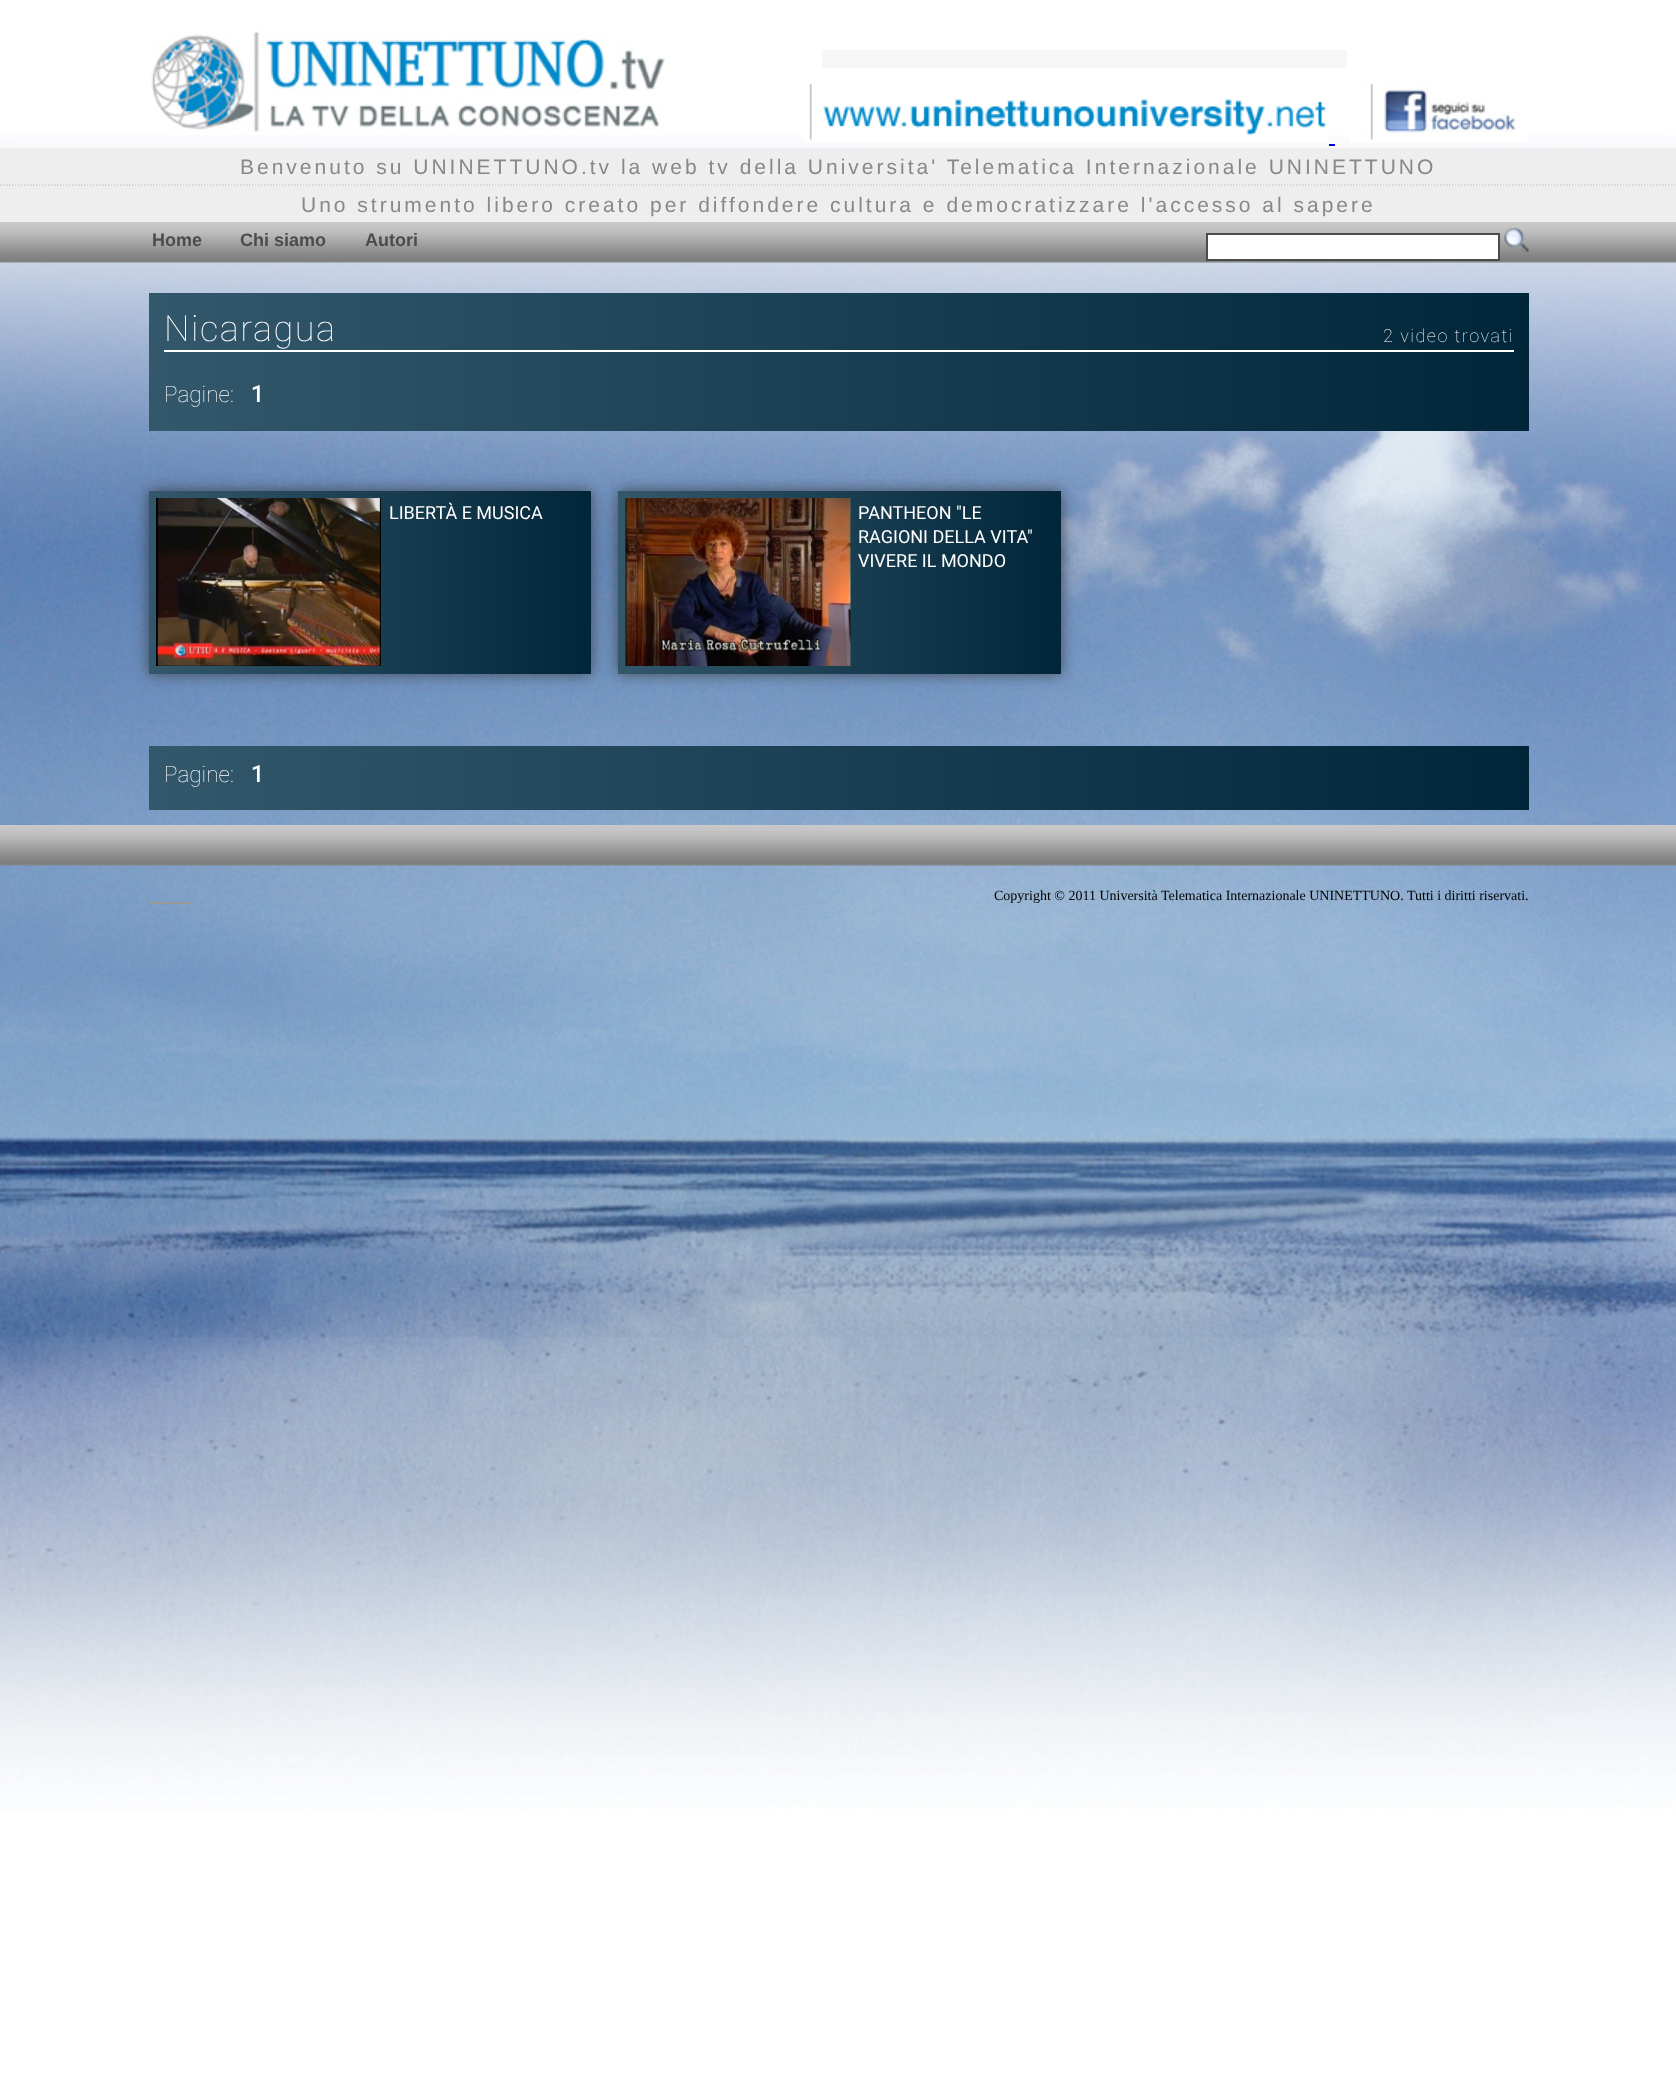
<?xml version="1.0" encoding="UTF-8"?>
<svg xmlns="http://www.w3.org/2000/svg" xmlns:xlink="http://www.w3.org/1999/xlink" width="1676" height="2095">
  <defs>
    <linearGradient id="g1" gradientUnits="userSpaceOnUse" x1="149" y1="329" x2="1529" y2="329"><stop offset="0" stop-color="#33586b" /><stop offset="1" stop-color="#012639" /></linearGradient>
    <linearGradient id="g2" gradientUnits="userSpaceOnUse" x1="149" y1="398" x2="1529" y2="398"><stop offset="0" stop-color="#33586b" /><stop offset="1" stop-color="#012639" /></linearGradient>
    <linearGradient id="g3" gradientUnits="userSpaceOnUse" x1="149" y1="582" x2="591" y2="582"><stop offset="0" stop-color="#33586b" /><stop offset="1" stop-color="#012639" /></linearGradient>
    <linearGradient id="g4" gradientUnits="userSpaceOnUse" x1="618" y1="582" x2="1061" y2="582"><stop offset="0" stop-color="#33586b" /><stop offset="1" stop-color="#012639" /></linearGradient>
    <linearGradient id="g5" gradientUnits="userSpaceOnUse" x1="149" y1="778" x2="1529" y2="778"><stop offset="0" stop-color="#33586b" /><stop offset="1" stop-color="#012639" /></linearGradient>
  </defs>
  <rect width="100%" height="100%" fill="#ffffff" />
  <image x="0" y="135" width="1676" height="1676" xlink:href="image1.png" />
  <image x="151" y="31" width="514" height="102" xlink:href="image2.png" />
  <rect x="822" y="50" width="525" height="18" fill="#f7f7f7" />
  <image x="804" y="83" width="525" height="59" xlink:href="image3.png" />
  <image x="1349" y="83" width="179" height="59" xlink:href="image4.png" />
  <rect x="1329" y="144" width="6" height="2" fill="#0000ee" />
  <rect y="184" width="1676" height="1" fill="#f4f4f4" />
  <rect y="148" width="1676" height="36" fill="#eeeeee" />
  <path d="M 0 185 h 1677" fill="none" stroke="#cccccc" stroke-width="1.5" stroke-dasharray="1.5 1.5" />
  <rect y="186" width="1676" height="36" fill="#eeeeee" />
  <image x="0" y="222" width="1676" height="41" xlink:href="image5.png" />
  <rect x="1207" y="234" width="292" height="26" fill="#ffffff" stroke="#4c4c4c" stroke-width="2" />
  <image x="1504" y="228" width="25" height="24" xlink:href="image6.png" />
  <rect x="149" y="293" width="1380" height="73" fill="url(#g1)" />
  <rect x="164" y="350" width="1350" height="2" fill="#ffffff" />
  <rect x="149" y="366" width="1380" height="65" fill="url(#g2)" />
  <rect x="149" y="491" width="442" height="183" fill="#323232" fill-opacity="0.75" filter="blur(7.5px)" />
  <rect x="149" y="491" width="442" height="183" fill="url(#g3)" />
  <image x="156" y="498" width="225" height="168" xlink:href="image7.png" />
  <rect x="618" y="491" width="443" height="183" fill="#323232" fill-opacity="0.75" filter="blur(7.5px)" />
  <rect x="618" y="491" width="443" height="183" fill="url(#g4)" />
  <image x="625" y="498" width="226" height="168" xlink:href="image8.png" />
  <rect x="149" y="746" width="1380" height="64" fill="url(#g5)" />
  <image x="0" y="825" width="1676" height="41" xlink:href="image9.png" />
  <rect x="149" y="902" width="43" height="2" fill="#999999" />
  <text x="240" y="174" style="font-family: Liberation Sans; font-size: 21px; letter-spacing: 3px; fill: #888888">Benvenuto su UNINETTUNO.tv la web tv della Universita' Telematica Internazionale UNINETTUNO</text>
  <text x="301" y="212" style="font-family: Liberation Sans; font-size: 21px; letter-spacing: 3px; fill: #888888">Uno strumento libero creato per diffondere cultura e democratizzare l'accesso al sapere</text>
  <text x="152" y="246" style="font-family: Liberation Sans; font-size: 18px; font-weight: bold; fill: #4c4c4c">Home</text>
  <text x="240" y="246" style="font-family: Liberation Sans; font-size: 18px; font-weight: bold; fill: #4c4c4c">Chi siamo</text>
  <text x="365" y="246" style="font-family: Liberation Sans; font-size: 18px; font-weight: bold; fill: #4c4c4c">Autori</text>
  <text x="164" y="341" style="font-family: Roboto; font-size: 36px; font-weight: 100; letter-spacing: 1.5px; fill: #ffffff">Nicaragua</text>
  <text x="1383" y="342" style="font-family: Roboto; font-size: 18px; font-weight: 100; letter-spacing: 1.5px; fill: #ffffff">2 video trovati</text>
  <text x="164" y="402" style="font-family: Roboto; font-size: 22.5px; font-weight: 100; fill: #ffffff">Pagine:</text>
  <text x="251" y="402" style="font-family: Roboto; font-size: 22.5px; font-weight: bold; fill: #ffffff">1</text>
  <text x="389" y="519" style="font-family: Roboto; font-size: 18px; fill: #ffffff">LIBERTÀ E MUSICA</text>
  <text x="858" y="519" style="font-family: Roboto; font-size: 18px; fill: #ffffff">PANTHEON "LE</text>
  <text x="858" y="543" style="font-family: Roboto; font-size: 18px; fill: #ffffff">RAGIONI DELLA VITA"</text>
  <text x="858" y="567" style="font-family: Roboto; font-size: 18px; fill: #ffffff">VIVERE IL MONDO</text>
  <text x="164" y="782" style="font-family: Roboto; font-size: 22.5px; font-weight: 100; fill: #ffffff">Pagine:</text>
  <text x="251" y="782" style="font-family: Roboto; font-size: 22.5px; font-weight: bold; fill: #ffffff">1</text>
  <text x="994" y="900" style="font-family: Liberation Serif; font-size: 14px; fill: #000000">Copyright © 2011 Università Telematica Internazionale UNINETTUNO. Tutti i diritti riservati.</text>
</svg>
